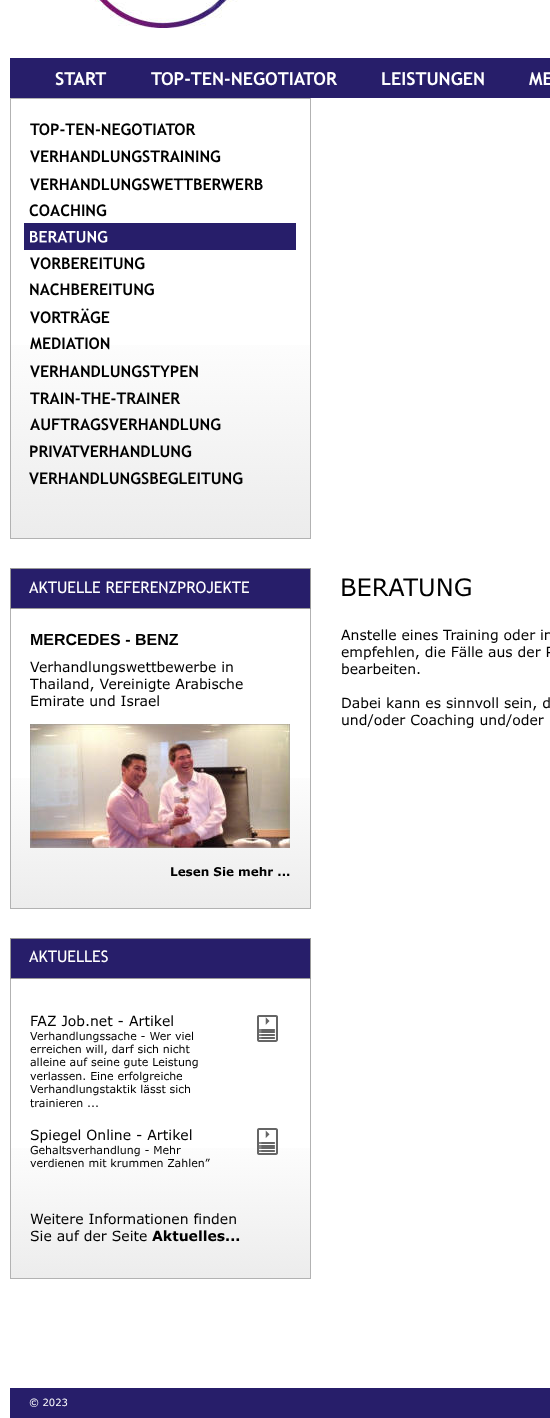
<?xml version="1.0" encoding="UTF-8"?>
<svg xmlns="http://www.w3.org/2000/svg" xmlns:xlink="http://www.w3.org/1999/xlink" width="550" height="1418">
  <defs>
    <linearGradient id="g1" gradientUnits="userSpaceOnUse" x1="10" y1="78" x2="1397" y2="78"><stop offset="0.45" stop-color="#271e6a" /><stop offset="1" stop-color="#3c0a65" /></linearGradient>
    <linearGradient id="g2" gradientUnits="userSpaceOnUse" x1="160" y1="99" x2="161" y2="617"><stop offset="0.42" stop-color="#ffffff" /><stop offset="1" stop-color="#e5e5e5" /></linearGradient>
    <linearGradient id="g3" gradientUnits="userSpaceOnUse" x1="160" y1="609" x2="161" y2="965"><stop offset="0.42" stop-color="#ffffff" /><stop offset="1" stop-color="#e5e5e5" /></linearGradient>
    <linearGradient id="g4" gradientUnits="userSpaceOnUse" x1="160" y1="979" x2="161" y2="1335"><stop offset="0.42" stop-color="#ffffff" /><stop offset="1" stop-color="#e5e5e5" /></linearGradient>
  </defs>
  <rect width="100%" height="100%" fill="#ffffff" />
  <image x="94" y="0" width="144" height="28" xlink:href="image1.png" />
  <rect x="10" y="58" width="540" height="40" fill="url(#g1)" />
  <rect x="11" y="345" width="299" height="193" fill="url(#g2)" />
  <rect x="10.5" y="98.5" width="300" height="440" fill="none" stroke="#b2b2b2" />
  <image x="24" y="223" width="272" height="27" xlink:href="image2.png" />
  <rect x="11" y="778" width="299" height="130" fill="url(#g3)" />
  <rect x="10.5" y="608.5" width="300" height="300" fill="none" stroke="#b2b2b2" />
  <rect x="10.5" y="568.5" width="300" height="40" fill="#271e6a" stroke="#999999" />
  <image x="30" y="724" width="260" height="124" xlink:href="image3.png" />
  <rect x="11" y="1148" width="299" height="130" fill="url(#g4)" />
  <rect x="10.5" y="978.5" width="300" height="300" fill="none" stroke="#b2b2b2" />
  <rect x="10.5" y="938.5" width="300" height="40" fill="#271e6a" stroke="#999999" />
  <image x="257" y="1015" width="21" height="27" xlink:href="image4.png" />
  <image x="257" y="1128" width="21" height="27" xlink:href="image5.png" />
  <rect x="10" y="1388" width="540" height="30" fill="#271e6a" />
  <text x="55" y="85" style="font-family: Trebuchet MS; font-size: 18px; font-weight: bold; fill: #ffffff">START</text>
  <text x="151" y="85" style="font-family: Trebuchet MS; font-size: 18px; font-weight: bold; fill: #ffffff">TOP-TEN-NEGOTIATOR</text>
  <text x="381" y="85" style="font-family: Trebuchet MS; font-size: 18px; font-weight: bold; fill: #ffffff">LEISTUNGEN</text>
  <text x="529" y="85" style="font-family: Trebuchet MS; font-size: 18px; font-weight: bold; fill: #ffffff">ME</text>
  <text x="30" y="135" style="font-family: Trebuchet MS; font-size: 16px; font-weight: bold; fill: #000000">TOP-TEN-NEGOTIATOR</text>
  <text x="30" y="162" style="font-family: Trebuchet MS; font-size: 16px; font-weight: bold; fill: #000000">VERHANDLUNGSTRAINING</text>
  <text x="30" y="190" style="font-family: Trebuchet MS; font-size: 16px; font-weight: bold; fill: #000000">VERHANDLUNGSWETTBERWERB</text>
  <text x="29" y="216" style="font-family: Trebuchet MS; font-size: 16px; font-weight: bold; fill: #000000">COACHING</text>
  <text x="30" y="269" style="font-family: Trebuchet MS; font-size: 16px; font-weight: bold; fill: #000000">VORBEREITUNG</text>
  <text x="29" y="295" style="font-family: Trebuchet MS; font-size: 16px; font-weight: bold; fill: #000000">NACHBEREITUNG</text>
  <text x="30" y="323" style="font-family: Trebuchet MS; font-size: 16px; font-weight: bold; fill: #000000">VORTRÄGE</text>
  <text x="30" y="349" style="font-family: Trebuchet MS; font-size: 16px; font-weight: bold; fill: #000000">MEDIATION</text>
  <text x="30" y="377" style="font-family: Trebuchet MS; font-size: 16px; font-weight: bold; fill: #000000">VERHANDLUNGSTYPEN</text>
  <text x="30" y="404" style="font-family: Trebuchet MS; font-size: 16px; font-weight: bold; fill: #000000">TRAIN-THE-TRAINER</text>
  <text x="30" y="430" style="font-family: Trebuchet MS; font-size: 16px; font-weight: bold; fill: #000000">AUFTRAGSVERHANDLUNG</text>
  <text x="29" y="457" style="font-family: Trebuchet MS; font-size: 16px; font-weight: bold; fill: #000000">PRIVATVERHANDLUNG</text>
  <text x="29" y="484" style="font-family: Trebuchet MS; font-size: 16px; font-weight: bold; fill: #000000">VERHANDLUNGSBEGLEITUNG</text>
  <text x="340" y="596" style="font-family: Verdana; font-size: 24px; fill: #000000">BERATUNG</text>
  <text x="29" y="593" style="font-family: Trebuchet MS; font-size: 16px; fill: #ffffff">AKTUELLE REFERENZPROJEKTE</text>
  <text x="341" y="640" style="font-family: Verdana; font-size: 14px; fill: #000000">Anstelle eines Training oder in</text>
  <text x="341" y="657" style="font-family: Verdana; font-size: 14px; fill: #000000">empfehlen, die Fälle aus der P</text>
  <text x="341" y="674" style="font-family: Verdana; font-size: 14px; fill: #000000">bearbeiten.</text>
  <text x="341" y="708" style="font-family: Verdana; font-size: 14px; fill: #000000">Dabei kann es sinnvoll sein, d</text>
  <text x="341" y="725" style="font-family: Verdana; font-size: 14px; fill: #000000">und/oder Coaching und/oder</text>
  <text x="30" y="645" style="font-family: Liberation Sans; font-size: 16px; font-weight: bold; fill: #000000">MERCEDES - BENZ</text>
  <text x="30" y="672" style="font-family: Verdana; font-size: 14px; fill: #000000">Verhandlungswettbewerbe in</text>
  <text x="30" y="689" style="font-family: Verdana; font-size: 14px; fill: #000000">Thailand, Vereinigte Arabische</text>
  <text x="30" y="706" style="font-family: Verdana; font-size: 14px; fill: #000000">Emirate und Israel</text>
  <text x="170" y="876" style="font-family: Verdana; font-size: 12px; font-weight: bold; fill: #000000">Lesen Sie mehr ...</text>
  <text x="29" y="962" style="font-family: Trebuchet MS; font-size: 16px; fill: #ffffff">AKTUELLES</text>
  <text x="30" y="1026" style="font-family: Verdana; font-size: 14px; fill: #000000">FAZ Job.net - Artikel</text>
  <text x="30" y="1040" style="font-family: Verdana; font-size: 11px; fill: #000000">Verhandlungssache - Wer viel</text>
  <text x="30" y="1053" style="font-family: Verdana; font-size: 11px; fill: #000000">erreichen will, darf sich nicht</text>
  <text x="30" y="1066" style="font-family: Verdana; font-size: 11px; fill: #000000">alleine auf seine gute Leistung</text>
  <text x="30" y="1080" style="font-family: Verdana; font-size: 11px; fill: #000000">verlassen. Eine erfolgreiche</text>
  <text x="30" y="1093" style="font-family: Verdana; font-size: 11px; fill: #000000">Verhandlungstaktik lässt sich</text>
  <text x="30" y="1107" style="font-family: Verdana; font-size: 11px; fill: #000000">trainieren ...</text>
  <text x="30" y="1140" style="font-family: Verdana; font-size: 14px; fill: #000000">Spiegel Online - Artikel</text>
  <text x="30" y="1154" style="font-family: Verdana; font-size: 11px; fill: #000000">Gehaltsverhandlung - Mehr</text>
  <text x="30" y="1167" style="font-family: Verdana; font-size: 11px; fill: #000000">verdienen mit krummen Zahlen”</text>
  <text x="30" y="1224" style="font-family: Verdana; font-size: 14px; fill: #000000">Weitere Informationen finden</text>
  <text x="30" y="1241" style="font-family: Verdana; font-size: 14px; fill: #000000">Sie auf der Seite</text>
  <text x="152" y="1241" style="font-family: Verdana; font-size: 14px; font-weight: bold; fill: #000000">Aktuelles...</text>
  <text x="29" y="1406" style="font-family: Verdana; font-size: 10px; fill: #ffffff">© 2023</text>
</svg>
